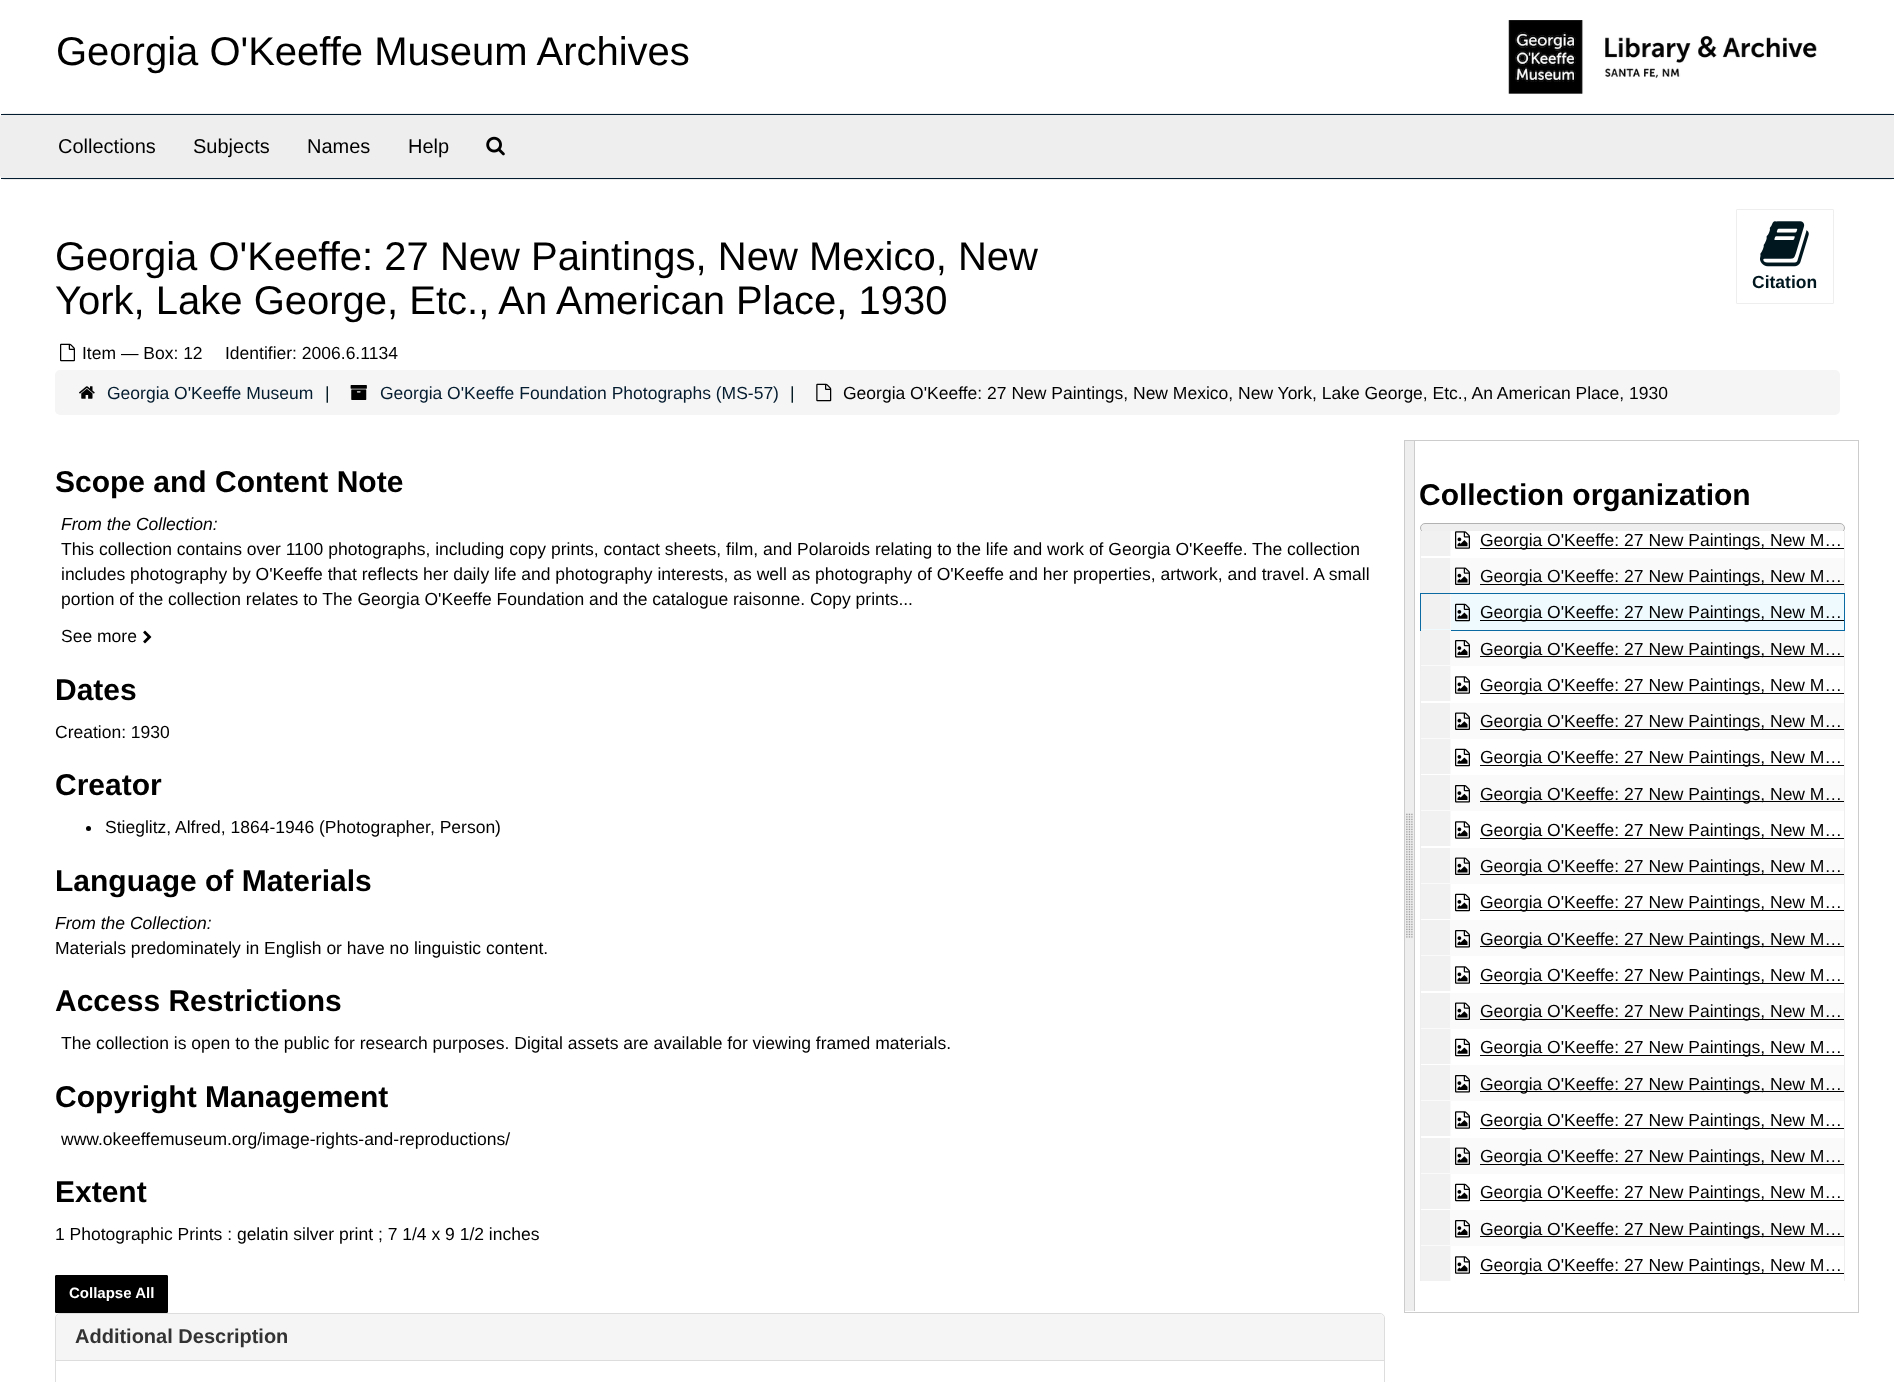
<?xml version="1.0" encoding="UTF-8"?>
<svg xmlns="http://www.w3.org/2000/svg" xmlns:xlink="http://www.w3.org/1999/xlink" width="1894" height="1382">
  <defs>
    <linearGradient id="g1" gradientUnits="userSpaceOnUse" x1="1421" y1="539" x2="1451" y2="539"><stop offset="0" stop-color="#f1f1f1" /><stop offset="0.96" stop-color="#f1f1f1" /><stop offset="1" stop-color="#ffffff" /></linearGradient>
    <linearGradient id="g2" gradientUnits="userSpaceOnUse" x1="1421" y1="575" x2="1451" y2="575"><stop offset="0" stop-color="#f1f1f1" /><stop offset="0.96" stop-color="#f1f1f1" /><stop offset="1" stop-color="#ffffff" /></linearGradient>
    <linearGradient id="g3" gradientUnits="userSpaceOnUse" x1="1421" y1="611" x2="1451" y2="611"><stop offset="0" stop-color="#f1f1f1" /><stop offset="0.96" stop-color="#f1f1f1" /><stop offset="1" stop-color="#ffffff" /></linearGradient>
    <linearGradient id="g4" gradientUnits="userSpaceOnUse" x1="1421" y1="648" x2="1451" y2="648"><stop offset="0" stop-color="#f1f1f1" /><stop offset="0.96" stop-color="#f1f1f1" /><stop offset="1" stop-color="#ffffff" /></linearGradient>
    <linearGradient id="g5" gradientUnits="userSpaceOnUse" x1="1421" y1="684" x2="1451" y2="684"><stop offset="0" stop-color="#f1f1f1" /><stop offset="0.96" stop-color="#f1f1f1" /><stop offset="1" stop-color="#ffffff" /></linearGradient>
    <linearGradient id="g6" gradientUnits="userSpaceOnUse" x1="1421" y1="720" x2="1451" y2="720"><stop offset="0" stop-color="#f1f1f1" /><stop offset="0.96" stop-color="#f1f1f1" /><stop offset="1" stop-color="#ffffff" /></linearGradient>
    <linearGradient id="g7" gradientUnits="userSpaceOnUse" x1="1421" y1="756" x2="1451" y2="756"><stop offset="0" stop-color="#f1f1f1" /><stop offset="0.96" stop-color="#f1f1f1" /><stop offset="1" stop-color="#ffffff" /></linearGradient>
    <linearGradient id="g8" gradientUnits="userSpaceOnUse" x1="1421" y1="793" x2="1451" y2="793"><stop offset="0" stop-color="#f1f1f1" /><stop offset="0.96" stop-color="#f1f1f1" /><stop offset="1" stop-color="#ffffff" /></linearGradient>
    <linearGradient id="g9" gradientUnits="userSpaceOnUse" x1="1421" y1="829" x2="1451" y2="829"><stop offset="0" stop-color="#f1f1f1" /><stop offset="0.96" stop-color="#f1f1f1" /><stop offset="1" stop-color="#ffffff" /></linearGradient>
    <linearGradient id="g10" gradientUnits="userSpaceOnUse" x1="1421" y1="865" x2="1451" y2="865"><stop offset="0" stop-color="#f1f1f1" /><stop offset="0.96" stop-color="#f1f1f1" /><stop offset="1" stop-color="#ffffff" /></linearGradient>
    <linearGradient id="g11" gradientUnits="userSpaceOnUse" x1="1421" y1="901" x2="1451" y2="901"><stop offset="0" stop-color="#f1f1f1" /><stop offset="0.96" stop-color="#f1f1f1" /><stop offset="1" stop-color="#ffffff" /></linearGradient>
    <linearGradient id="g12" gradientUnits="userSpaceOnUse" x1="1421" y1="938" x2="1451" y2="938"><stop offset="0" stop-color="#f1f1f1" /><stop offset="0.96" stop-color="#f1f1f1" /><stop offset="1" stop-color="#ffffff" /></linearGradient>
    <linearGradient id="g13" gradientUnits="userSpaceOnUse" x1="1421" y1="974" x2="1451" y2="974"><stop offset="0" stop-color="#f1f1f1" /><stop offset="0.96" stop-color="#f1f1f1" /><stop offset="1" stop-color="#ffffff" /></linearGradient>
    <linearGradient id="g14" gradientUnits="userSpaceOnUse" x1="1421" y1="1010" x2="1451" y2="1010"><stop offset="0" stop-color="#f1f1f1" /><stop offset="0.96" stop-color="#f1f1f1" /><stop offset="1" stop-color="#ffffff" /></linearGradient>
    <linearGradient id="g15" gradientUnits="userSpaceOnUse" x1="1421" y1="1046" x2="1451" y2="1046"><stop offset="0" stop-color="#f1f1f1" /><stop offset="0.96" stop-color="#f1f1f1" /><stop offset="1" stop-color="#ffffff" /></linearGradient>
    <linearGradient id="g16" gradientUnits="userSpaceOnUse" x1="1421" y1="1083" x2="1451" y2="1083"><stop offset="0" stop-color="#f1f1f1" /><stop offset="0.96" stop-color="#f1f1f1" /><stop offset="1" stop-color="#ffffff" /></linearGradient>
    <linearGradient id="g17" gradientUnits="userSpaceOnUse" x1="1421" y1="1119" x2="1451" y2="1119"><stop offset="0" stop-color="#f1f1f1" /><stop offset="0.96" stop-color="#f1f1f1" /><stop offset="1" stop-color="#ffffff" /></linearGradient>
    <linearGradient id="g18" gradientUnits="userSpaceOnUse" x1="1421" y1="1155" x2="1451" y2="1155"><stop offset="0" stop-color="#f1f1f1" /><stop offset="0.96" stop-color="#f1f1f1" /><stop offset="1" stop-color="#ffffff" /></linearGradient>
    <linearGradient id="g19" gradientUnits="userSpaceOnUse" x1="1421" y1="1191" x2="1451" y2="1191"><stop offset="0" stop-color="#f1f1f1" /><stop offset="0.96" stop-color="#f1f1f1" /><stop offset="1" stop-color="#ffffff" /></linearGradient>
    <linearGradient id="g20" gradientUnits="userSpaceOnUse" x1="1421" y1="1228" x2="1451" y2="1228"><stop offset="0" stop-color="#f1f1f1" /><stop offset="0.96" stop-color="#f1f1f1" /><stop offset="1" stop-color="#ffffff" /></linearGradient>
    <linearGradient id="g21" gradientUnits="userSpaceOnUse" x1="1421" y1="1264" x2="1451" y2="1264"><stop offset="0" stop-color="#f1f1f1" /><stop offset="0.96" stop-color="#f1f1f1" /><stop offset="1" stop-color="#ffffff" /></linearGradient>
  </defs>
  <rect width="100%" height="100%" fill="#ffffff" />
  <image x="1508" y="20" width="309" height="74" xlink:href="image1.png" />
  <rect x="0.5" y="113.5" width="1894" height="66" rx="4.5" fill="none" stroke="#eeeeee" />
  <rect x="1" y="115" width="1893" height="63" fill="#eeeeee" />
  <rect x="1" y="114" width="1893" height="1" fill="#041c2f" />
  <rect x="1" y="178" width="1893" height="1" fill="#041c2f" />
  <image x="486" y="136" width="19" height="20" xlink:href="image2.png" />
  <image x="60" y="343" width="15" height="19" xlink:href="image3.png" />
  <rect x="1736.5" y="209.5" width="97" height="94" rx="0.5" fill="none" stroke="#eeeeee" />
  <image x="1760" y="221" width="49" height="46" xlink:href="image4.png" />
  <rect x="55" y="370" width="1785" height="45" rx="5" fill="#f5f5f5" />
  <image x="79" y="386" width="16" height="13" xlink:href="image5.png" />
  <image x="350" y="385" width="17" height="15" xlink:href="image6.png" />
  <image x="816" y="383" width="16" height="19" xlink:href="image7.png" />
  <image x="143" y="630" width="9" height="14" xlink:href="image8.png" />
  <circle cx="88.5" cy="828.5" r="2.5" fill="#000000" />
  <rect x="55.5" y="1275.5" width="112" height="37" rx="0.5" fill="#000000" stroke="#000000" />
  <rect x="55.5" y="1313.5" width="1329" height="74" rx="4.5" fill="none" stroke="#dddddd" />
  <path d="M 60 1314 h 1320 c 2 0 4 2 4 4 v 42 h -1328 v -42 c 0 -2 2 -4 4 -4 z" fill="#f5f5f5" />
  <rect x="56" y="1360" width="1328" height="1" fill="#dddddd" />
  <rect x="1404.5" y="440.5" width="454" height="872" fill="none" stroke="#cccccc" />
  <rect x="1405" y="441" width="9" height="870" fill="#eeeeee" />
  <image x="1406" y="813" width="7" height="125" xlink:href="image9.png" />
  <rect x="1414" y="441" width="1" height="870" fill="#cccccc" />
  <rect x="1420.5" y="523.5" width="424" height="9" rx="4.5" fill="#efefef" stroke="#b2b2b2" />
  <rect x="1420" y="531" width="425" height="750" fill="#eeeeee" />
  <rect x="1421" y="531" width="423" height="27" fill="#ffffff" />
  <rect x="1421" y="531" width="30" height="25" fill="url(#g1)" />
  <image x="1455" y="531" width="15" height="18" xlink:href="image10.png" />
  <rect x="1480" y="548" width="364" height="1" fill="#000000" />
  <rect x="1451" y="558" width="393" height="35" fill="#fafafa" />
  <rect x="1421" y="558" width="30" height="35" fill="url(#g2)" />
  <image x="1455" y="567" width="15" height="18" xlink:href="image11.png" />
  <rect x="1480" y="584" width="364" height="1" fill="#000000" />
  <rect x="1420.5" y="593.5" width="424" height="37" fill="none" stroke="#0a6aa1" />
  <rect x="1421" y="594" width="423" height="36" fill="#effaff" />
  <rect x="1421" y="594" width="30" height="35" fill="url(#g3)" />
  <image x="1455" y="603" width="15" height="19" xlink:href="image12.png" />
  <rect x="1480" y="620" width="364" height="1" fill="#000000" />
  <rect x="1421" y="631" width="423" height="35" fill="#fafafa" />
  <rect x="1421" y="630" width="30" height="35" fill="url(#g4)" />
  <image x="1455" y="640" width="15" height="18" xlink:href="image13.png" />
  <rect x="1480" y="656" width="364" height="1" fill="#000000" />
  <rect x="1421" y="666" width="423" height="37" fill="#ffffff" />
  <rect x="1421" y="666" width="30" height="35" fill="url(#g5)" />
  <image x="1455" y="676" width="15" height="18" xlink:href="image10.png" />
  <rect x="1480" y="693" width="364" height="1" fill="#000000" />
  <rect x="1421" y="703" width="423" height="36" fill="#fafafa" />
  <rect x="1421" y="703" width="29" height="35" fill="url(#g6)" />
  <image x="1455" y="712" width="15" height="18" xlink:href="image11.png" />
  <rect x="1480" y="729" width="364" height="1" fill="#000000" />
  <rect x="1421" y="739" width="423" height="36" fill="#ffffff" />
  <rect x="1421" y="739" width="30" height="35" fill="url(#g7)" />
  <image x="1455" y="748" width="15" height="19" xlink:href="image14.png" />
  <rect x="1480" y="765" width="364" height="1" fill="#000000" />
  <rect x="1421" y="775" width="423" height="36" fill="#fafafa" />
  <rect x="1421" y="775" width="29" height="35" fill="url(#g8)" />
  <image x="1455" y="785" width="15" height="18" xlink:href="image13.png" />
  <rect x="1480" y="801" width="364" height="1" fill="#000000" />
  <rect x="1421" y="811" width="423" height="37" fill="#ffffff" />
  <rect x="1421" y="811" width="30" height="35" fill="url(#g9)" />
  <image x="1455" y="821" width="15" height="18" xlink:href="image10.png" />
  <rect x="1480" y="838" width="364" height="1" fill="#000000" />
  <rect x="1421" y="848" width="423" height="36" fill="#fafafa" />
  <rect x="1421" y="848" width="29" height="35" fill="url(#g10)" />
  <image x="1455" y="857" width="15" height="18" xlink:href="image11.png" />
  <rect x="1480" y="874" width="364" height="1" fill="#000000" />
  <rect x="1421" y="884" width="423" height="36" fill="#ffffff" />
  <rect x="1421" y="884" width="30" height="35" fill="url(#g11)" />
  <image x="1455" y="893" width="15" height="19" xlink:href="image14.png" />
  <rect x="1480" y="910" width="364" height="1" fill="#000000" />
  <rect x="1421" y="920" width="423" height="36" fill="#fafafa" />
  <rect x="1421" y="920" width="29" height="35" fill="url(#g12)" />
  <image x="1455" y="930" width="15" height="18" xlink:href="image13.png" />
  <rect x="1480" y="946" width="364" height="1" fill="#000000" />
  <rect x="1421" y="956" width="423" height="37" fill="#ffffff" />
  <rect x="1421" y="956" width="30" height="35" fill="url(#g13)" />
  <image x="1455" y="966" width="15" height="18" xlink:href="image10.png" />
  <rect x="1480" y="983" width="364" height="1" fill="#000000" />
  <rect x="1421" y="993" width="423" height="36" fill="#fafafa" />
  <rect x="1421" y="993" width="29" height="35" fill="url(#g14)" />
  <image x="1455" y="1002" width="15" height="18" xlink:href="image11.png" />
  <rect x="1480" y="1019" width="364" height="1" fill="#000000" />
  <rect x="1421" y="1029" width="423" height="36" fill="#ffffff" />
  <rect x="1421" y="1029" width="30" height="35" fill="url(#g15)" />
  <image x="1455" y="1038" width="15" height="19" xlink:href="image14.png" />
  <rect x="1480" y="1055" width="364" height="1" fill="#000000" />
  <rect x="1421" y="1065" width="423" height="36" fill="#fafafa" />
  <rect x="1421" y="1065" width="29" height="35" fill="url(#g16)" />
  <image x="1455" y="1075" width="15" height="18" xlink:href="image13.png" />
  <rect x="1480" y="1091" width="364" height="1" fill="#000000" />
  <rect x="1421" y="1101" width="423" height="37" fill="#ffffff" />
  <rect x="1421" y="1101" width="30" height="35" fill="url(#g17)" />
  <image x="1455" y="1111" width="15" height="18" xlink:href="image10.png" />
  <rect x="1480" y="1128" width="364" height="1" fill="#000000" />
  <rect x="1421" y="1138" width="423" height="36" fill="#fafafa" />
  <rect x="1421" y="1138" width="29" height="35" fill="url(#g18)" />
  <image x="1455" y="1147" width="15" height="18" xlink:href="image11.png" />
  <rect x="1480" y="1164" width="364" height="1" fill="#000000" />
  <rect x="1421" y="1174" width="423" height="36" fill="#ffffff" />
  <rect x="1421" y="1174" width="30" height="35" fill="url(#g19)" />
  <image x="1455" y="1183" width="15" height="19" xlink:href="image14.png" />
  <rect x="1480" y="1200" width="364" height="1" fill="#000000" />
  <rect x="1421" y="1210" width="423" height="36" fill="#fafafa" />
  <rect x="1421" y="1210" width="29" height="35" fill="url(#g20)" />
  <image x="1455" y="1220" width="15" height="18" xlink:href="image13.png" />
  <rect x="1480" y="1236" width="364" height="1" fill="#000000" />
  <rect x="1451" y="1246" width="393" height="35" fill="#ffffff" />
  <rect x="1421" y="1246" width="30" height="35" fill="url(#g21)" />
  <image x="1455" y="1256" width="15" height="18" xlink:href="image10.png" />
  <rect x="1480" y="1273" width="364" height="1" fill="#000000" />
  <text x="56" y="65" style="font-family: Liberation Sans; font-size: 40px; fill: #000000">Georgia O'Keeffe Museum Archives</text>
  <text x="58" y="153" style="font-family: Liberation Sans; font-size: 20px; fill: #000000">Collections</text>
  <text x="193" y="153" style="font-family: Liberation Sans; font-size: 20px; fill: #000000">Subjects</text>
  <text x="307" y="153" style="font-family: Liberation Sans; font-size: 20px; fill: #000000">Names</text>
  <text x="408" y="153" style="font-family: Liberation Sans; font-size: 20px; fill: #000000">Help</text>
  <text x="55" y="270" style="font-family: Liberation Sans; font-size: 40px; fill: #000000">Georgia O'Keeffe: 27 New Paintings, New Mexico, New</text>
  <text x="55" y="314" style="font-family: Liberation Sans; font-size: 40px; fill: #000000">York, Lake George, Etc., An American Place, 1930</text>
  <text x="82" y="359" style="font-family: Liberation Sans; font-size: 17.5px; fill: #000000">Item — Box: 12</text>
  <text x="225" y="359" style="font-family: Liberation Sans; font-size: 17.5px; fill: #000000">Identifier: 2006.6.1134</text>
  <text x="1752" y="288" style="font-family: Liberation Sans; font-size: 17.5px; font-weight: bold; fill: #00171f">Citation</text>
  <text x="107" y="399" style="font-family: Liberation Sans; font-size: 17.5px; fill: #041c2f">Georgia O'Keeffe Museum</text>
  <text x="325" y="399" style="font-family: Liberation Sans; font-size: 17.5px; fill: #00171f">|</text>
  <text x="380" y="399" style="font-family: Liberation Sans; font-size: 17.5px; fill: #041c2f">Georgia O'Keeffe Foundation Photographs (MS-57)</text>
  <text x="790" y="399" style="font-family: Liberation Sans; font-size: 17.5px; fill: #00171f">|</text>
  <text x="843" y="399" style="font-family: Liberation Sans; font-size: 17.5px; fill: #000000">Georgia O'Keeffe: 27 New Paintings, New Mexico, New York, Lake George, Etc., An American Place, 1930</text>
  <text x="55" y="492" style="font-family: Liberation Sans; font-size: 30px; font-weight: bold; fill: #000000">Scope and Content Note</text>
  <text x="61" y="530" style="font-family: Liberation Sans; font-size: 17.5px; font-style: italic; fill: #000000">From the Collection:</text>
  <text x="61" y="555" style="font-family: Liberation Sans; font-size: 17.5px; fill: #000000">This collection contains over 1100 photographs, including copy prints, contact sheets, film, and Polaroids relating to the life and work of Georgia O'Keeffe. The collection</text>
  <text x="61" y="580" style="font-family: Liberation Sans; font-size: 17.5px; fill: #000000">includes photography by O'Keeffe that reflects her daily life and photography interests, as well as photography of O'Keeffe and her properties, artwork, and travel. A small</text>
  <text x="61" y="605" style="font-family: Liberation Sans; font-size: 17.5px; fill: #000000">portion of the collection relates to The Georgia O'Keeffe Foundation and the catalogue raisonne. Copy prints...</text>
  <text x="61" y="642" style="font-family: Liberation Sans; font-size: 17.5px; fill: #000000">See more</text>
  <text x="55" y="700" style="font-family: Liberation Sans; font-size: 30px; font-weight: bold; fill: #000000">Dates</text>
  <text x="55" y="738" style="font-family: Liberation Sans; font-size: 17.5px; fill: #000000">Creation: 1930</text>
  <text x="55" y="795" style="font-family: Liberation Sans; font-size: 30px; font-weight: bold; fill: #000000">Creator</text>
  <text x="105" y="833" style="font-family: Liberation Sans; font-size: 17.5px; fill: #000000">Stieglitz, Alfred, 1864-1946 (Photographer, Person)</text>
  <text x="55" y="891" style="font-family: Liberation Sans; font-size: 30px; font-weight: bold; fill: #000000">Language of Materials</text>
  <text x="55" y="929" style="font-family: Liberation Sans; font-size: 17.5px; font-style: italic; fill: #000000">From the Collection:</text>
  <text x="55" y="954" style="font-family: Liberation Sans; font-size: 17.5px; fill: #000000">Materials predominately in English or have no linguistic content.</text>
  <text x="55" y="1011" style="font-family: Liberation Sans; font-size: 30px; font-weight: bold; fill: #000000">Access Restrictions</text>
  <text x="61" y="1049" style="font-family: Liberation Sans; font-size: 17.5px; fill: #000000">The collection is open to the public for research purposes. Digital assets are available for viewing framed materials.</text>
  <text x="55" y="1107" style="font-family: Liberation Sans; font-size: 30px; font-weight: bold; fill: #000000">Copyright Management</text>
  <text x="61" y="1145" style="font-family: Liberation Sans; font-size: 17.5px; fill: #000000">www.okeeffemuseum.org/image-rights-and-reproductions/</text>
  <text x="55" y="1202" style="font-family: Liberation Sans; font-size: 30px; font-weight: bold; fill: #000000">Extent</text>
  <text x="55" y="1240" style="font-family: Liberation Sans; font-size: 17.5px; fill: #000000">1 Photographic Prints : gelatin silver print ; 7 1/4 x 9 1/2 inches</text>
  <text x="69" y="1298" style="font-family: Liberation Sans; font-size: 15px; font-weight: bold; fill: #ffffff">Collapse All</text>
  <text x="75" y="1343" style="font-family: Liberation Sans; font-size: 20px; font-weight: bold; fill: #333333">Additional Description</text>
  <text x="1419" y="505" style="font-family: Liberation Sans; font-size: 30px; font-weight: bold; fill: #000000">Collection organization</text>
  <text x="1480" y="546" style="font-family: Liberation Sans; font-size: 17.5px; fill: #000000">Georgia O'Keeffe: 27 New Paintings, New M…</text>
  <text x="1480" y="582" style="font-family: Liberation Sans; font-size: 17.5px; fill: #000000">Georgia O'Keeffe: 27 New Paintings, New M…</text>
  <text x="1480" y="618" style="font-family: Liberation Sans; font-size: 17.5px; fill: #000000">Georgia O'Keeffe: 27 New Paintings, New M…</text>
  <text x="1480" y="655" style="font-family: Liberation Sans; font-size: 17.5px; fill: #000000">Georgia O'Keeffe: 27 New Paintings, New M…</text>
  <text x="1480" y="691" style="font-family: Liberation Sans; font-size: 17.5px; fill: #000000">Georgia O'Keeffe: 27 New Paintings, New M…</text>
  <text x="1480" y="727" style="font-family: Liberation Sans; font-size: 17.5px; fill: #000000">Georgia O'Keeffe: 27 New Paintings, New M…</text>
  <text x="1480" y="763" style="font-family: Liberation Sans; font-size: 17.5px; fill: #000000">Georgia O'Keeffe: 27 New Paintings, New M…</text>
  <text x="1480" y="800" style="font-family: Liberation Sans; font-size: 17.5px; fill: #000000">Georgia O'Keeffe: 27 New Paintings, New M…</text>
  <text x="1480" y="836" style="font-family: Liberation Sans; font-size: 17.5px; fill: #000000">Georgia O'Keeffe: 27 New Paintings, New M…</text>
  <text x="1480" y="872" style="font-family: Liberation Sans; font-size: 17.5px; fill: #000000">Georgia O'Keeffe: 27 New Paintings, New M…</text>
  <text x="1480" y="908" style="font-family: Liberation Sans; font-size: 17.5px; fill: #000000">Georgia O'Keeffe: 27 New Paintings, New M…</text>
  <text x="1480" y="945" style="font-family: Liberation Sans; font-size: 17.5px; fill: #000000">Georgia O'Keeffe: 27 New Paintings, New M…</text>
  <text x="1480" y="981" style="font-family: Liberation Sans; font-size: 17.5px; fill: #000000">Georgia O'Keeffe: 27 New Paintings, New M…</text>
  <text x="1480" y="1017" style="font-family: Liberation Sans; font-size: 17.5px; fill: #000000">Georgia O'Keeffe: 27 New Paintings, New M…</text>
  <text x="1480" y="1053" style="font-family: Liberation Sans; font-size: 17.5px; fill: #000000">Georgia O'Keeffe: 27 New Paintings, New M…</text>
  <text x="1480" y="1090" style="font-family: Liberation Sans; font-size: 17.5px; fill: #000000">Georgia O'Keeffe: 27 New Paintings, New M…</text>
  <text x="1480" y="1126" style="font-family: Liberation Sans; font-size: 17.5px; fill: #000000">Georgia O'Keeffe: 27 New Paintings, New M…</text>
  <text x="1480" y="1162" style="font-family: Liberation Sans; font-size: 17.5px; fill: #000000">Georgia O'Keeffe: 27 New Paintings, New M…</text>
  <text x="1480" y="1198" style="font-family: Liberation Sans; font-size: 17.5px; fill: #000000">Georgia O'Keeffe: 27 New Paintings, New M…</text>
  <text x="1480" y="1235" style="font-family: Liberation Sans; font-size: 17.5px; fill: #000000">Georgia O'Keeffe: 27 New Paintings, New M…</text>
  <text x="1480" y="1271" style="font-family: Liberation Sans; font-size: 17.5px; fill: #000000">Georgia O'Keeffe: 27 New Paintings, New M…</text>
</svg>
